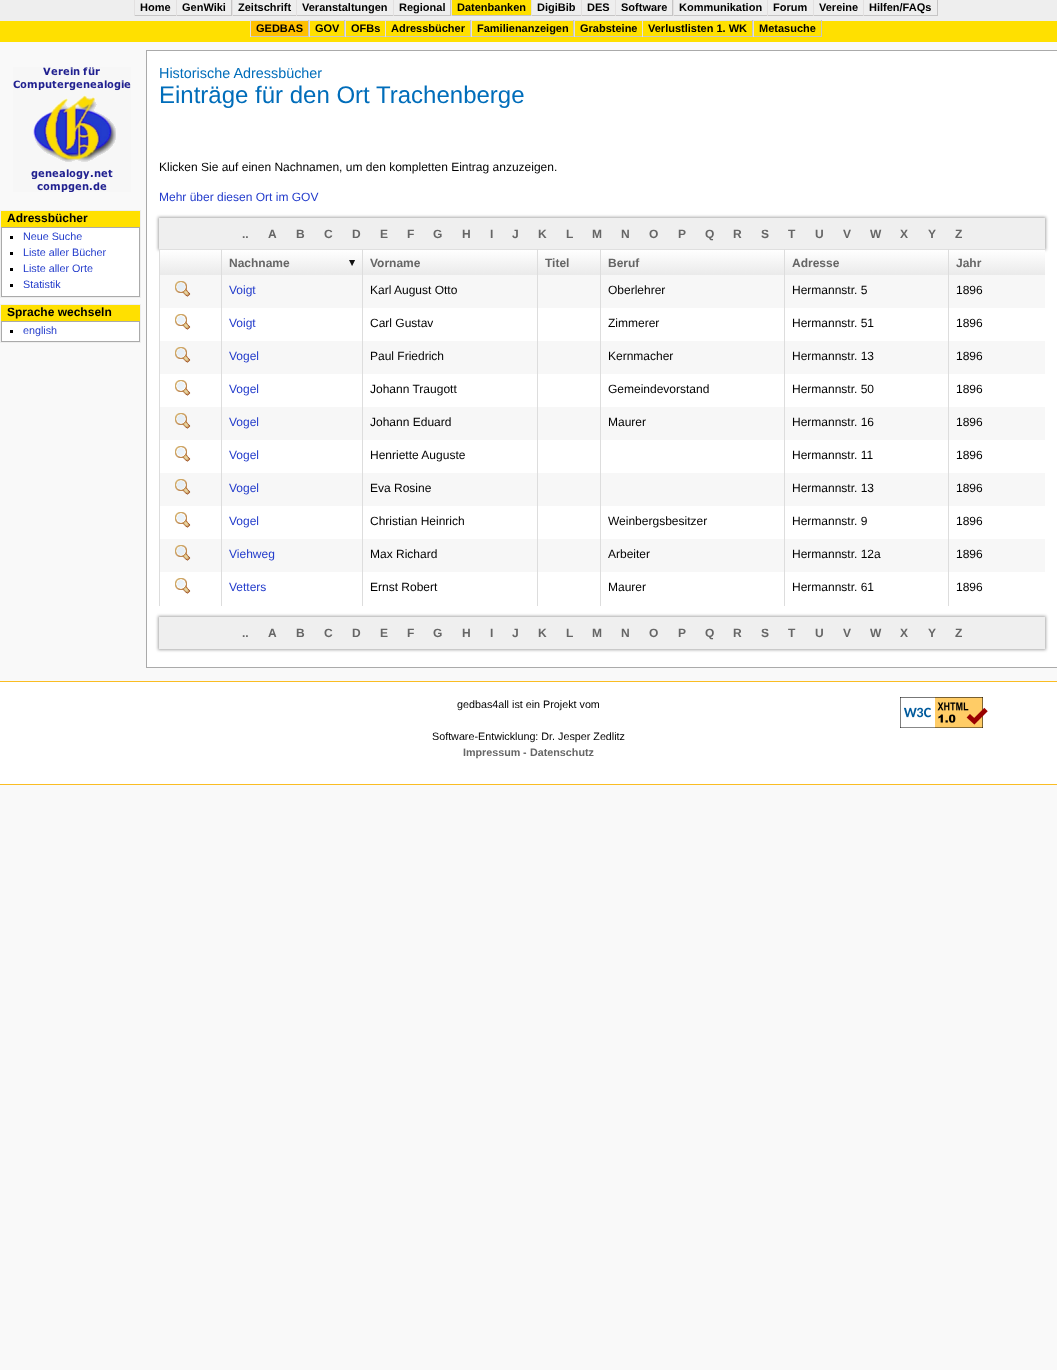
<?xml version="1.0" encoding="UTF-8"?>
<svg xmlns="http://www.w3.org/2000/svg" xmlns:xlink="http://www.w3.org/1999/xlink" width="1057" height="1370">
  <defs>
    <linearGradient id="g1" gradientUnits="userSpaceOnUse" x1="161" y1="250" x2="161" y2="275"><stop offset="0" stop-color="#ffffff" /><stop offset="1" stop-color="#eaeaea" /></linearGradient>
    <linearGradient id="g2" gradientUnits="userSpaceOnUse" x1="223" y1="250" x2="223" y2="275"><stop offset="0" stop-color="#ffffff" /><stop offset="1" stop-color="#eaeaea" /></linearGradient>
    <linearGradient id="g3" gradientUnits="userSpaceOnUse" x1="363" y1="250" x2="363" y2="275"><stop offset="0" stop-color="#ffffff" /><stop offset="1" stop-color="#eaeaea" /></linearGradient>
    <linearGradient id="g4" gradientUnits="userSpaceOnUse" x1="538" y1="250" x2="538" y2="275"><stop offset="0" stop-color="#ffffff" /><stop offset="1" stop-color="#eaeaea" /></linearGradient>
    <linearGradient id="g5" gradientUnits="userSpaceOnUse" x1="601" y1="250" x2="601" y2="275"><stop offset="0" stop-color="#ffffff" /><stop offset="1" stop-color="#eaeaea" /></linearGradient>
    <linearGradient id="g6" gradientUnits="userSpaceOnUse" x1="785" y1="250" x2="785" y2="275"><stop offset="0" stop-color="#ffffff" /><stop offset="1" stop-color="#eaeaea" /></linearGradient>
    <linearGradient id="g7" gradientUnits="userSpaceOnUse" x1="949" y1="250" x2="949" y2="275"><stop offset="0" stop-color="#ffffff" /><stop offset="1" stop-color="#eaeaea" /></linearGradient>
  </defs>
  <rect width="100%" height="100%" fill="#f9f9f9" />
  <rect width="1057" height="21" fill="#eeeeee" />
  <rect x="134" y="15" width="43" height="1" fill="#c6c5c5" />
  <rect x="134" width="1" height="16" fill="#e2e0e0" />
  <rect x="231" width="1" height="16" fill="#c6c5c5" />
  <rect x="176" y="15" width="218" height="1" fill="#c6c5c5" />
  <rect x="176" width="1" height="16" fill="#e2e0e0" />
  <rect x="232" width="1" height="16" fill="#e2e0e0" />
  <rect x="296" width="1" height="16" fill="#e2e0e0" />
  <rect x="450" width="1" height="16" fill="#c6c5c5" />
  <rect x="393" y="15" width="223" height="1" fill="#c6c5c5" />
  <rect x="393" width="1" height="16" fill="#e2e0e0" />
  <rect x="452" width="79" height="15" fill="#ffe000" />
  <rect x="451" width="1" height="16" fill="#e2e0e0" />
  <rect x="531" width="1" height="16" fill="#e2e0e0" />
  <rect x="581" width="1" height="16" fill="#e2e0e0" />
  <rect x="672" width="1" height="16" fill="#c6c5c5" />
  <rect x="615" y="15" width="249" height="1" fill="#c6c5c5" />
  <rect x="615" width="1" height="16" fill="#e2e0e0" />
  <rect x="673" width="1" height="16" fill="#e2e0e0" />
  <rect x="767" width="1" height="16" fill="#e2e0e0" />
  <rect x="813" width="1" height="16" fill="#e2e0e0" />
  <rect x="937" width="1" height="16" fill="#c6c5c5" />
  <rect x="863" y="15" width="75" height="1" fill="#c6c5c5" />
  <rect x="863" width="1" height="16" fill="#e2e0e0" />
  <rect y="21" width="1057" height="21" fill="#ffe000" />
  <rect x="251" y="21" width="57" height="15" fill="#ffc000" />
  <rect x="250" y="20" width="572" height="1" fill="#e0e0e0" />
  <rect x="308" y="20" width="1" height="17" fill="#c6c5c5" />
  <rect x="250" y="36" width="59" height="1" fill="#c6c5c5" />
  <rect x="250" y="20" width="1" height="17" fill="#e2e0e0" />
  <rect x="344" y="20" width="1" height="17" fill="#c6c5c5" />
  <rect x="309" y="36" width="77" height="1" fill="#c6c5c5" />
  <rect x="309" y="20" width="1" height="17" fill="#e2e0e0" />
  <rect x="345" y="20" width="1" height="17" fill="#e2e0e0" />
  <rect x="470" y="20" width="1" height="17" fill="#c6c5c5" />
  <rect x="385" y="36" width="86" height="1" fill="#c6c5c5" />
  <rect x="385" y="20" width="1" height="17" fill="#e2e0e0" />
  <rect x="573" y="20" width="1" height="17" fill="#c6c5c5" />
  <rect x="471" y="36" width="172" height="1" fill="#c6c5c5" />
  <rect x="471" y="20" width="1" height="17" fill="#e2e0e0" />
  <rect x="574" y="20" width="1" height="17" fill="#e2e0e0" />
  <rect x="752" y="20" width="1" height="17" fill="#c6c5c5" />
  <rect x="642" y="36" width="111" height="1" fill="#c6c5c5" />
  <rect x="642" y="20" width="1" height="17" fill="#e2e0e0" />
  <rect x="821" y="20" width="1" height="17" fill="#c6c5c5" />
  <rect x="753" y="36" width="69" height="1" fill="#c6c5c5" />
  <rect x="753" y="20" width="1" height="17" fill="#e2e0e0" />
  <image x="13" y="67" width="118" height="125" xlink:href="image1.png" />
  <rect x="1" y="211" width="139" height="16" fill="#ffe000" />
  <rect x="0.5" y="210.5" width="140" height="87" fill="none" stroke="#eeeeee" />
  <rect x="1.5" y="227.5" width="138" height="69" fill="#ffffff" stroke="#aaaaaa" />
  <rect x="10" y="236" width="3" height="3" fill="#000000" />
  <rect x="10" y="252" width="3" height="3" fill="#000000" />
  <rect x="10" y="268" width="3" height="3" fill="#000000" />
  <rect x="10" y="284" width="3" height="3" fill="#000000" />
  <rect x="1" y="305" width="139" height="16" fill="#ffe000" />
  <rect x="0.5" y="304.5" width="140" height="38" fill="none" stroke="#eeeeee" />
  <rect x="1.5" y="321.5" width="138" height="20" fill="#ffffff" stroke="#aaaaaa" />
  <rect x="10" y="330" width="3" height="3" fill="#000000" />
  <rect x="147" y="51" width="910" height="616" fill="#ffffff" />
  <rect x="146" y="50" width="911" height="1" fill="#aaaaaa" />
  <rect x="146" y="667" width="911" height="1" fill="#aaaaaa" />
  <rect x="146" y="50" width="1" height="618" fill="#aaaaaa" />
  <rect x="158" y="217" width="888" height="33" fill="#aaaaaa" filter="blur(1.5px)" />
  <rect x="159" y="218" width="886" height="31" fill="#efefef" />
  <rect x="159" y="249" width="886" height="1" fill="#dfdfdf" />
  <rect x="160" y="250" width="61" height="25" fill="url(#g1)" />
  <rect x="222" y="250" width="140" height="25" fill="url(#g2)" />
  <image x="349" y="260" width="6" height="6" xlink:href="image2.png" />
  <rect x="363" y="250" width="174" height="25" fill="url(#g3)" />
  <rect x="538" y="250" width="62" height="25" fill="url(#g4)" />
  <rect x="601" y="250" width="183" height="25" fill="url(#g5)" />
  <rect x="785" y="250" width="163" height="25" fill="url(#g6)" />
  <rect x="949" y="250" width="96" height="25" fill="url(#g7)" />
  <rect x="160" y="275" width="885" height="33" fill="#f7f7f7" />
  <image x="175" y="281" width="16" height="16" xlink:href="image3.png" />
  <image x="175" y="314" width="16" height="16" xlink:href="image4.png" />
  <rect x="160" y="341" width="885" height="33" fill="#f7f7f7" />
  <image x="175" y="347" width="16" height="16" xlink:href="image3.png" />
  <image x="175" y="380" width="16" height="16" xlink:href="image4.png" />
  <rect x="160" y="407" width="885" height="33" fill="#f7f7f7" />
  <image x="175" y="413" width="16" height="16" xlink:href="image3.png" />
  <image x="175" y="446" width="16" height="16" xlink:href="image4.png" />
  <rect x="160" y="473" width="885" height="33" fill="#f7f7f7" />
  <image x="175" y="479" width="16" height="16" xlink:href="image3.png" />
  <image x="175" y="512" width="16" height="16" xlink:href="image4.png" />
  <rect x="160" y="539" width="885" height="33" fill="#f7f7f7" />
  <image x="175" y="545" width="16" height="16" xlink:href="image3.png" />
  <rect x="159" y="249" width="1" height="357" fill="#dddddd" />
  <image x="175" y="578" width="16" height="16" xlink:href="image4.png" />
  <rect x="221" y="249" width="1" height="357" fill="#dddddd" />
  <rect x="362" y="249" width="1" height="357" fill="#dddddd" />
  <rect x="537" y="249" width="1" height="357" fill="#dddddd" />
  <rect x="600" y="249" width="1" height="357" fill="#dddddd" />
  <rect x="784" y="249" width="1" height="357" fill="#dddddd" />
  <rect x="948" y="249" width="1" height="357" fill="#dddddd" />
  <rect x="158" y="616" width="888" height="34" fill="#aaaaaa" filter="blur(1.5px)" />
  <rect x="159" y="617" width="886" height="32" fill="#efefef" />
  <rect y="682" width="1057" height="102" fill="#ffffff" />
  <rect y="681" width="1057" height="1" fill="#fabd23" />
  <rect y="784" width="1057" height="1" fill="#fabd23" />
  <image x="900" y="697" width="88" height="31" xlink:href="image5.png" />
  <text x="140" y="11" style="font-family: Liberation Sans; font-size: 11px; font-weight: bold; fill: #000000">Home</text>
  <text x="182" y="11" style="font-family: Liberation Sans; font-size: 11px; font-weight: bold; fill: #000000">GenWiki</text>
  <text x="238" y="11" style="font-family: Liberation Sans; font-size: 11px; font-weight: bold; fill: #000000">Zeitschrift</text>
  <text x="302" y="11" style="font-family: Liberation Sans; font-size: 11px; font-weight: bold; fill: #000000">Veranstaltungen</text>
  <text x="399" y="11" style="font-family: Liberation Sans; font-size: 11px; font-weight: bold; fill: #000000">Regional</text>
  <text x="457" y="11" style="font-family: Liberation Sans; font-size: 11px; font-weight: bold; fill: #000000">Datenbanken</text>
  <text x="537" y="11" style="font-family: Liberation Sans; font-size: 11px; font-weight: bold; fill: #000000">DigiBib</text>
  <text x="587" y="11" style="font-family: Liberation Sans; font-size: 11px; font-weight: bold; fill: #000000">DES</text>
  <text x="621" y="11" style="font-family: Liberation Sans; font-size: 11px; font-weight: bold; fill: #000000">Software</text>
  <text x="679" y="11" style="font-family: Liberation Sans; font-size: 11px; font-weight: bold; fill: #000000">Kommunikation</text>
  <text x="773" y="11" style="font-family: Liberation Sans; font-size: 11px; font-weight: bold; fill: #000000">Forum</text>
  <text x="819" y="11" style="font-family: Liberation Sans; font-size: 11px; font-weight: bold; fill: #000000">Vereine</text>
  <text x="869" y="11" style="font-family: Liberation Sans; font-size: 11px; font-weight: bold; fill: #000000">Hilfen/FAQs</text>
  <text x="256" y="32" style="font-family: Liberation Sans; font-size: 11px; font-weight: bold; fill: #000000">GEDBAS</text>
  <text x="315" y="32" style="font-family: Liberation Sans; font-size: 11px; font-weight: bold; fill: #000000">GOV</text>
  <text x="351" y="32" style="font-family: Liberation Sans; font-size: 11px; font-weight: bold; fill: #000000">OFBs</text>
  <text x="391" y="32" style="font-family: Liberation Sans; font-size: 11px; font-weight: bold; fill: #000000">Adressbücher</text>
  <text x="477" y="32" style="font-family: Liberation Sans; font-size: 11px; font-weight: bold; fill: #000000">Familienanzeigen</text>
  <text x="580" y="32" style="font-family: Liberation Sans; font-size: 11px; font-weight: bold; fill: #000000">Grabsteine</text>
  <text x="648" y="32" style="font-family: Liberation Sans; font-size: 11px; font-weight: bold; fill: #000000">Verlustlisten 1. WK</text>
  <text x="759" y="32" style="font-family: Liberation Sans; font-size: 11px; font-weight: bold; fill: #000000">Metasuche</text>
  <text x="7" y="222" style="font-family: Liberation Sans; font-size: 12px; font-weight: bold; fill: #000000">Adressbücher</text>
  <text x="23" y="240" style="font-family: Liberation Sans; font-size: 10.75px; fill: #223bcb">Neue Suche</text>
  <text x="23" y="256" style="font-family: Liberation Sans; font-size: 10.75px; fill: #223bcb">Liste aller Bücher</text>
  <text x="23" y="272" style="font-family: Liberation Sans; font-size: 10.75px; fill: #223bcb">Liste aller Orte</text>
  <text x="23" y="288" style="font-family: Liberation Sans; font-size: 10.75px; fill: #223bcb">Statistik</text>
  <text x="7" y="316" style="font-family: Liberation Sans; font-size: 12px; font-weight: bold; fill: #000000">Sprache wechseln</text>
  <text x="23" y="334" style="font-family: Liberation Sans; font-size: 10.75px; fill: #223bcb">english</text>
  <text x="159" y="78" style="font-family: Liberation Sans; font-size: 14.4px; fill: #006dba">Historische Adressbücher</text>
  <text x="159" y="103" style="font-family: Liberation Sans; font-size: 24px; fill: #006dba">Einträge für den Ort Trachenberge</text>
  <text x="159" y="171" style="font-family: Liberation Sans; font-size: 12px; fill: #000000">Klicken Sie auf einen Nachnamen, um den kompletten Eintrag anzuzeigen.</text>
  <text x="159" y="201" style="font-family: Liberation Sans; font-size: 12px; fill: #223bcb">Mehr über diesen Ort im GOV</text>
  <text x="242" y="238" style="font-family: Liberation Sans; font-size: 12px; font-weight: bold; fill: #666666">..</text>
  <text x="268" y="238" style="font-family: Liberation Sans; font-size: 12px; font-weight: bold; fill: #666666">A</text>
  <text x="296" y="238" style="font-family: Liberation Sans; font-size: 12px; font-weight: bold; fill: #666666">B</text>
  <text x="324" y="238" style="font-family: Liberation Sans; font-size: 12px; font-weight: bold; fill: #666666">C</text>
  <text x="352" y="238" style="font-family: Liberation Sans; font-size: 12px; font-weight: bold; fill: #666666">D</text>
  <text x="380" y="238" style="font-family: Liberation Sans; font-size: 12px; font-weight: bold; fill: #666666">E</text>
  <text x="407" y="238" style="font-family: Liberation Sans; font-size: 12px; font-weight: bold; fill: #666666">F</text>
  <text x="433" y="238" style="font-family: Liberation Sans; font-size: 12px; font-weight: bold; fill: #666666">G</text>
  <text x="462" y="238" style="font-family: Liberation Sans; font-size: 12px; font-weight: bold; fill: #666666">H</text>
  <text x="490" y="238" style="font-family: Liberation Sans; font-size: 12px; font-weight: bold; fill: #666666">I</text>
  <text x="512" y="238" style="font-family: Liberation Sans; font-size: 12px; font-weight: bold; fill: #666666">J</text>
  <text x="538" y="238" style="font-family: Liberation Sans; font-size: 12px; font-weight: bold; fill: #666666">K</text>
  <text x="566" y="238" style="font-family: Liberation Sans; font-size: 12px; font-weight: bold; fill: #666666">L</text>
  <text x="592" y="238" style="font-family: Liberation Sans; font-size: 12px; font-weight: bold; fill: #666666">M</text>
  <text x="621" y="238" style="font-family: Liberation Sans; font-size: 12px; font-weight: bold; fill: #666666">N</text>
  <text x="649" y="238" style="font-family: Liberation Sans; font-size: 12px; font-weight: bold; fill: #666666">O</text>
  <text x="678" y="238" style="font-family: Liberation Sans; font-size: 12px; font-weight: bold; fill: #666666">P</text>
  <text x="705" y="238" style="font-family: Liberation Sans; font-size: 12px; font-weight: bold; fill: #666666">Q</text>
  <text x="733" y="238" style="font-family: Liberation Sans; font-size: 12px; font-weight: bold; fill: #666666">R</text>
  <text x="761" y="238" style="font-family: Liberation Sans; font-size: 12px; font-weight: bold; fill: #666666">S</text>
  <text x="788" y="238" style="font-family: Liberation Sans; font-size: 12px; font-weight: bold; fill: #666666">T</text>
  <text x="815" y="238" style="font-family: Liberation Sans; font-size: 12px; font-weight: bold; fill: #666666">U</text>
  <text x="843" y="238" style="font-family: Liberation Sans; font-size: 12px; font-weight: bold; fill: #666666">V</text>
  <text x="870" y="238" style="font-family: Liberation Sans; font-size: 12px; font-weight: bold; fill: #666666">W</text>
  <text x="900" y="238" style="font-family: Liberation Sans; font-size: 12px; font-weight: bold; fill: #666666">X</text>
  <text x="928" y="238" style="font-family: Liberation Sans; font-size: 12px; font-weight: bold; fill: #666666">Y</text>
  <text x="955" y="238" style="font-family: Liberation Sans; font-size: 12px; font-weight: bold; fill: #666666">Z</text>
  <text x="229" y="267" style="font-family: Liberation Sans; font-size: 12px; font-weight: bold; fill: #666666">Nachname</text>
  <text x="370" y="267" style="font-family: Liberation Sans; font-size: 12px; font-weight: bold; fill: #666666">Vorname</text>
  <text x="545" y="267" style="font-family: Liberation Sans; font-size: 12px; font-weight: bold; fill: #666666">Titel</text>
  <text x="608" y="267" style="font-family: Liberation Sans; font-size: 12px; font-weight: bold; fill: #666666">Beruf</text>
  <text x="792" y="267" style="font-family: Liberation Sans; font-size: 12px; font-weight: bold; fill: #666666">Adresse</text>
  <text x="956" y="267" style="font-family: Liberation Sans; font-size: 12px; font-weight: bold; fill: #666666">Jahr</text>
  <text x="229" y="294" style="font-family: Liberation Sans; font-size: 12px; fill: #223bcb">Voigt</text>
  <text x="370" y="294" style="font-family: Liberation Sans; font-size: 12px; fill: #000000">Karl August Otto</text>
  <text x="608" y="294" style="font-family: Liberation Sans; font-size: 12px; fill: #000000">Oberlehrer</text>
  <text x="792" y="294" style="font-family: Liberation Sans; font-size: 12px; fill: #000000">Hermannstr. 5</text>
  <text x="956" y="294" style="font-family: Liberation Sans; font-size: 12px; fill: #000000">1896</text>
  <text x="229" y="327" style="font-family: Liberation Sans; font-size: 12px; fill: #223bcb">Voigt</text>
  <text x="370" y="327" style="font-family: Liberation Sans; font-size: 12px; fill: #000000">Carl Gustav</text>
  <text x="608" y="327" style="font-family: Liberation Sans; font-size: 12px; fill: #000000">Zimmerer</text>
  <text x="792" y="327" style="font-family: Liberation Sans; font-size: 12px; fill: #000000">Hermannstr. 51</text>
  <text x="956" y="327" style="font-family: Liberation Sans; font-size: 12px; fill: #000000">1896</text>
  <text x="229" y="360" style="font-family: Liberation Sans; font-size: 12px; fill: #223bcb">Vogel</text>
  <text x="370" y="360" style="font-family: Liberation Sans; font-size: 12px; fill: #000000">Paul Friedrich</text>
  <text x="608" y="360" style="font-family: Liberation Sans; font-size: 12px; fill: #000000">Kernmacher</text>
  <text x="792" y="360" style="font-family: Liberation Sans; font-size: 12px; fill: #000000">Hermannstr. 13</text>
  <text x="956" y="360" style="font-family: Liberation Sans; font-size: 12px; fill: #000000">1896</text>
  <text x="229" y="393" style="font-family: Liberation Sans; font-size: 12px; fill: #223bcb">Vogel</text>
  <text x="370" y="393" style="font-family: Liberation Sans; font-size: 12px; fill: #000000">Johann Traugott</text>
  <text x="608" y="393" style="font-family: Liberation Sans; font-size: 12px; fill: #000000">Gemeindevorstand</text>
  <text x="792" y="393" style="font-family: Liberation Sans; font-size: 12px; fill: #000000">Hermannstr. 50</text>
  <text x="956" y="393" style="font-family: Liberation Sans; font-size: 12px; fill: #000000">1896</text>
  <text x="229" y="426" style="font-family: Liberation Sans; font-size: 12px; fill: #223bcb">Vogel</text>
  <text x="370" y="426" style="font-family: Liberation Sans; font-size: 12px; fill: #000000">Johann Eduard</text>
  <text x="608" y="426" style="font-family: Liberation Sans; font-size: 12px; fill: #000000">Maurer</text>
  <text x="792" y="426" style="font-family: Liberation Sans; font-size: 12px; fill: #000000">Hermannstr. 16</text>
  <text x="956" y="426" style="font-family: Liberation Sans; font-size: 12px; fill: #000000">1896</text>
  <text x="229" y="459" style="font-family: Liberation Sans; font-size: 12px; fill: #223bcb">Vogel</text>
  <text x="370" y="459" style="font-family: Liberation Sans; font-size: 12px; fill: #000000">Henriette Auguste</text>
  <text x="792" y="459" style="font-family: Liberation Sans; font-size: 12px; fill: #000000">Hermannstr. 11</text>
  <text x="956" y="459" style="font-family: Liberation Sans; font-size: 12px; fill: #000000">1896</text>
  <text x="229" y="492" style="font-family: Liberation Sans; font-size: 12px; fill: #223bcb">Vogel</text>
  <text x="370" y="492" style="font-family: Liberation Sans; font-size: 12px; fill: #000000">Eva Rosine</text>
  <text x="792" y="492" style="font-family: Liberation Sans; font-size: 12px; fill: #000000">Hermannstr. 13</text>
  <text x="956" y="492" style="font-family: Liberation Sans; font-size: 12px; fill: #000000">1896</text>
  <text x="229" y="525" style="font-family: Liberation Sans; font-size: 12px; fill: #223bcb">Vogel</text>
  <text x="370" y="525" style="font-family: Liberation Sans; font-size: 12px; fill: #000000">Christian Heinrich</text>
  <text x="608" y="525" style="font-family: Liberation Sans; font-size: 12px; fill: #000000">Weinbergsbesitzer</text>
  <text x="792" y="525" style="font-family: Liberation Sans; font-size: 12px; fill: #000000">Hermannstr. 9</text>
  <text x="956" y="525" style="font-family: Liberation Sans; font-size: 12px; fill: #000000">1896</text>
  <text x="229" y="558" style="font-family: Liberation Sans; font-size: 12px; fill: #223bcb">Viehweg</text>
  <text x="370" y="558" style="font-family: Liberation Sans; font-size: 12px; fill: #000000">Max Richard</text>
  <text x="608" y="558" style="font-family: Liberation Sans; font-size: 12px; fill: #000000">Arbeiter</text>
  <text x="792" y="558" style="font-family: Liberation Sans; font-size: 12px; fill: #000000">Hermannstr. 12a</text>
  <text x="956" y="558" style="font-family: Liberation Sans; font-size: 12px; fill: #000000">1896</text>
  <text x="229" y="591" style="font-family: Liberation Sans; font-size: 12px; fill: #223bcb">Vetters</text>
  <text x="370" y="591" style="font-family: Liberation Sans; font-size: 12px; fill: #000000">Ernst Robert</text>
  <text x="608" y="591" style="font-family: Liberation Sans; font-size: 12px; fill: #000000">Maurer</text>
  <text x="792" y="591" style="font-family: Liberation Sans; font-size: 12px; fill: #000000">Hermannstr. 61</text>
  <text x="956" y="591" style="font-family: Liberation Sans; font-size: 12px; fill: #000000">1896</text>
  <text x="242" y="637" style="font-family: Liberation Sans; font-size: 12px; font-weight: bold; fill: #666666">..</text>
  <text x="268" y="637" style="font-family: Liberation Sans; font-size: 12px; font-weight: bold; fill: #666666">A</text>
  <text x="296" y="637" style="font-family: Liberation Sans; font-size: 12px; font-weight: bold; fill: #666666">B</text>
  <text x="324" y="637" style="font-family: Liberation Sans; font-size: 12px; font-weight: bold; fill: #666666">C</text>
  <text x="352" y="637" style="font-family: Liberation Sans; font-size: 12px; font-weight: bold; fill: #666666">D</text>
  <text x="380" y="637" style="font-family: Liberation Sans; font-size: 12px; font-weight: bold; fill: #666666">E</text>
  <text x="407" y="637" style="font-family: Liberation Sans; font-size: 12px; font-weight: bold; fill: #666666">F</text>
  <text x="433" y="637" style="font-family: Liberation Sans; font-size: 12px; font-weight: bold; fill: #666666">G</text>
  <text x="462" y="637" style="font-family: Liberation Sans; font-size: 12px; font-weight: bold; fill: #666666">H</text>
  <text x="490" y="637" style="font-family: Liberation Sans; font-size: 12px; font-weight: bold; fill: #666666">I</text>
  <text x="512" y="637" style="font-family: Liberation Sans; font-size: 12px; font-weight: bold; fill: #666666">J</text>
  <text x="538" y="637" style="font-family: Liberation Sans; font-size: 12px; font-weight: bold; fill: #666666">K</text>
  <text x="566" y="637" style="font-family: Liberation Sans; font-size: 12px; font-weight: bold; fill: #666666">L</text>
  <text x="592" y="637" style="font-family: Liberation Sans; font-size: 12px; font-weight: bold; fill: #666666">M</text>
  <text x="621" y="637" style="font-family: Liberation Sans; font-size: 12px; font-weight: bold; fill: #666666">N</text>
  <text x="649" y="637" style="font-family: Liberation Sans; font-size: 12px; font-weight: bold; fill: #666666">O</text>
  <text x="678" y="637" style="font-family: Liberation Sans; font-size: 12px; font-weight: bold; fill: #666666">P</text>
  <text x="705" y="637" style="font-family: Liberation Sans; font-size: 12px; font-weight: bold; fill: #666666">Q</text>
  <text x="733" y="637" style="font-family: Liberation Sans; font-size: 12px; font-weight: bold; fill: #666666">R</text>
  <text x="761" y="637" style="font-family: Liberation Sans; font-size: 12px; font-weight: bold; fill: #666666">S</text>
  <text x="788" y="637" style="font-family: Liberation Sans; font-size: 12px; font-weight: bold; fill: #666666">T</text>
  <text x="815" y="637" style="font-family: Liberation Sans; font-size: 12px; font-weight: bold; fill: #666666">U</text>
  <text x="843" y="637" style="font-family: Liberation Sans; font-size: 12px; font-weight: bold; fill: #666666">V</text>
  <text x="870" y="637" style="font-family: Liberation Sans; font-size: 12px; font-weight: bold; fill: #666666">W</text>
  <text x="900" y="637" style="font-family: Liberation Sans; font-size: 12px; font-weight: bold; fill: #666666">X</text>
  <text x="928" y="637" style="font-family: Liberation Sans; font-size: 12px; font-weight: bold; fill: #666666">Y</text>
  <text x="955" y="637" style="font-family: Liberation Sans; font-size: 12px; font-weight: bold; fill: #666666">Z</text>
  <text x="457" y="708" style="font-family: Liberation Sans; font-size: 10.75px; fill: #000000">gedbas4all ist ein Projekt vom</text>
  <text x="432" y="740" style="font-family: Liberation Sans; font-size: 10.75px; fill: #000000">Software-Entwicklung: Dr. Jesper Zedlitz</text>
  <text x="463" y="756" style="font-family: Liberation Sans; font-size: 10.75px; font-weight: bold; fill: #666666">Impressum</text>
  <text x="523" y="756" style="font-family: Liberation Sans; font-size: 10.75px; fill: #000000">-</text>
  <text x="530" y="756" style="font-family: Liberation Sans; font-size: 10.75px; font-weight: bold; fill: #666666">Datenschutz</text>
</svg>
